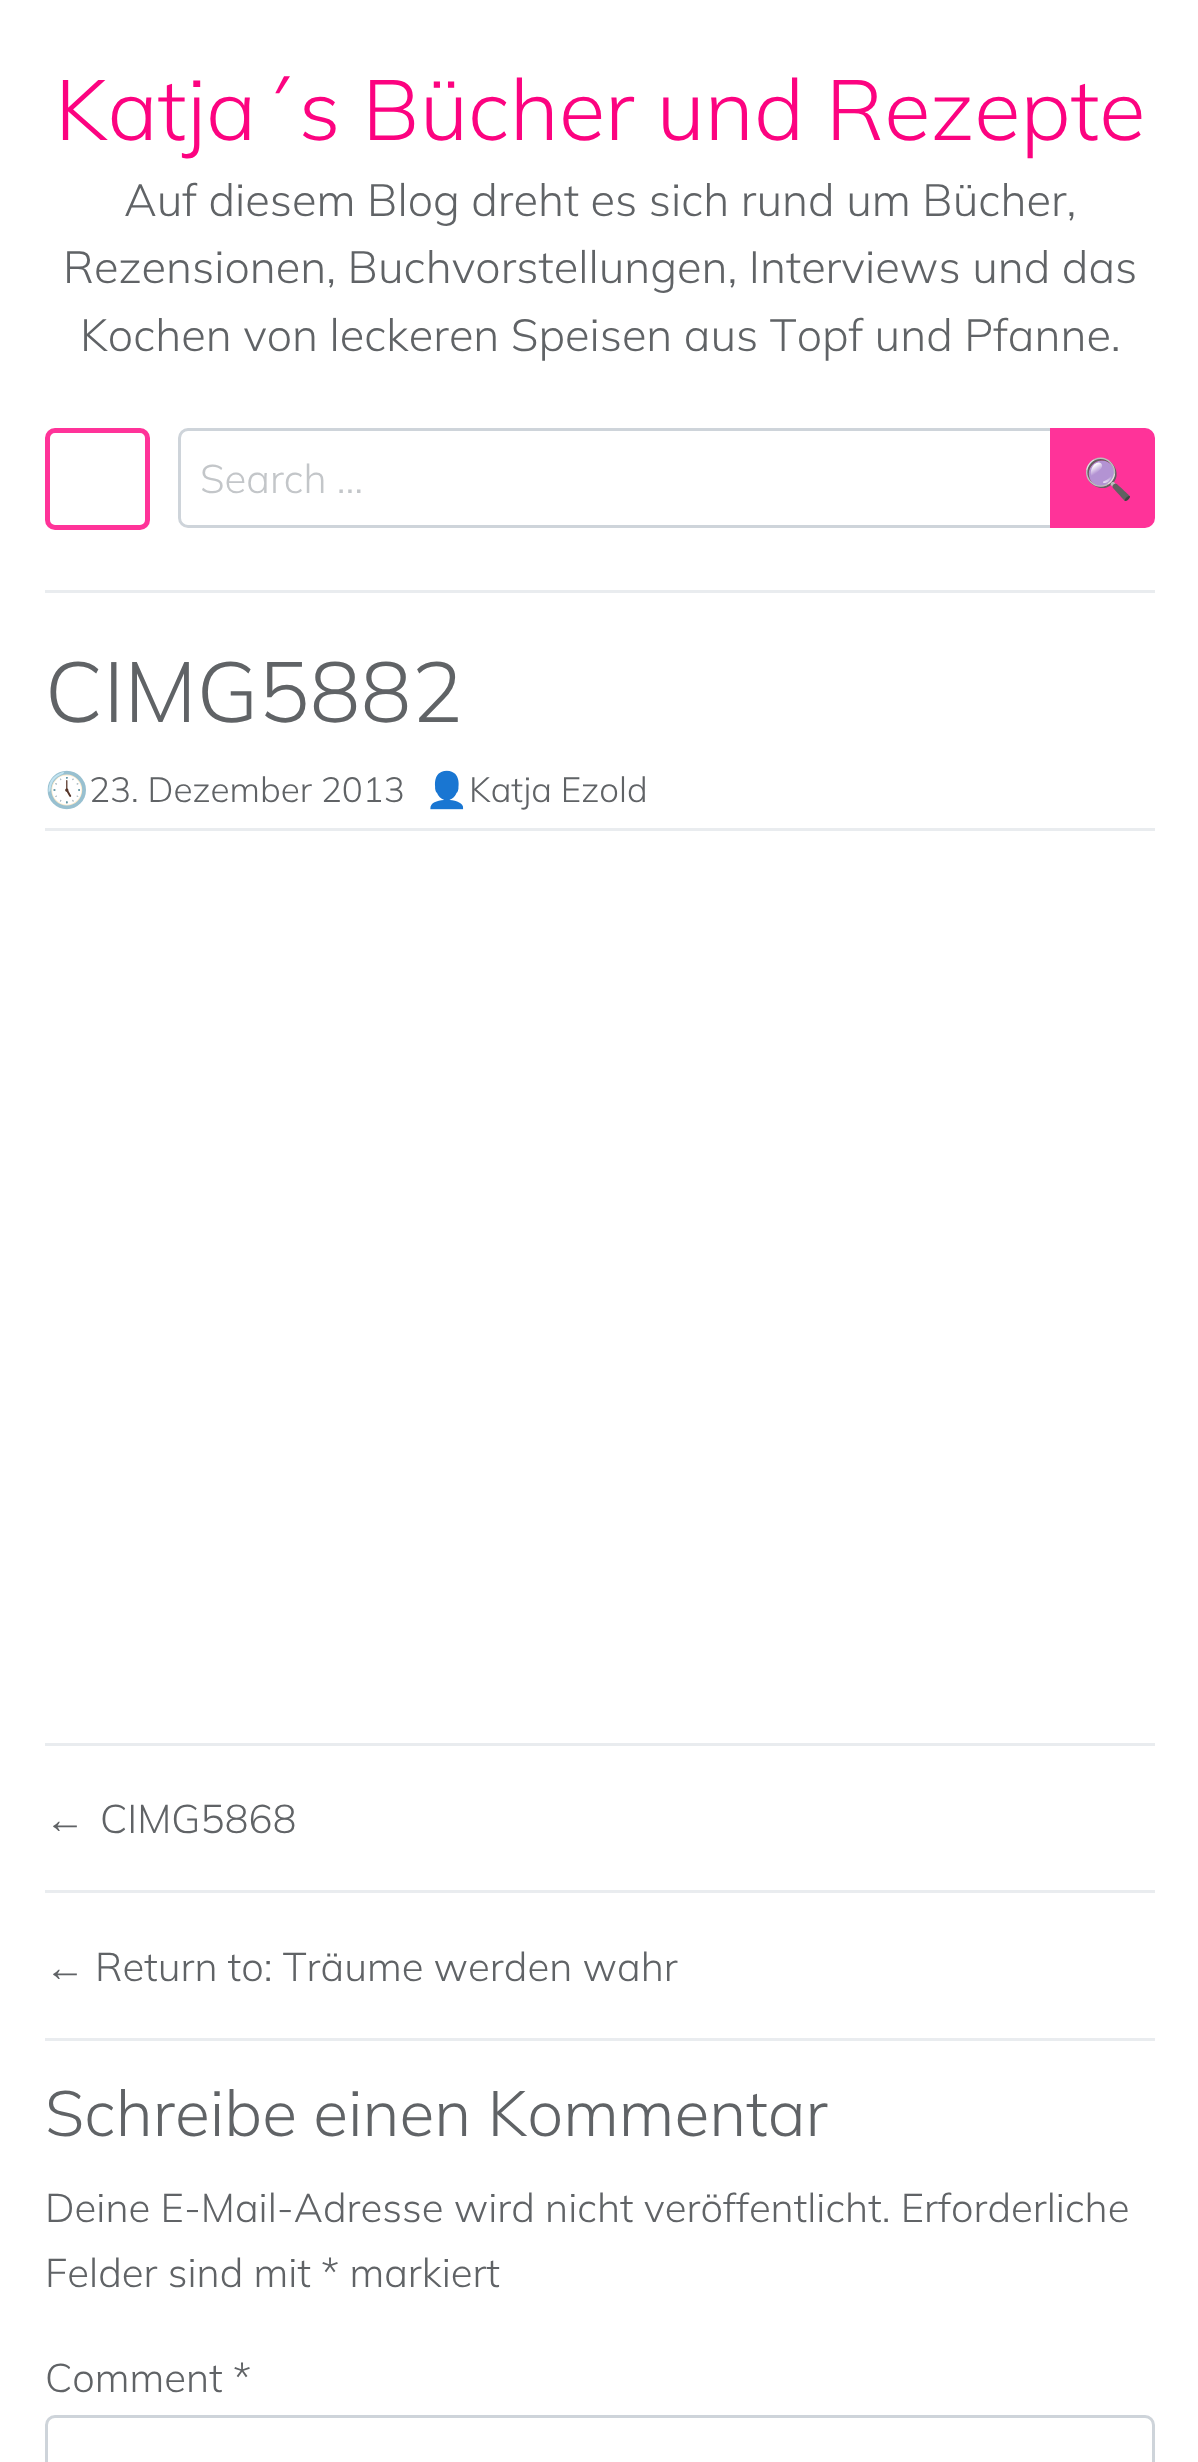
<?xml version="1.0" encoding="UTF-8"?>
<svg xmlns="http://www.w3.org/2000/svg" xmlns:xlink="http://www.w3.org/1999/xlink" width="1198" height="2462">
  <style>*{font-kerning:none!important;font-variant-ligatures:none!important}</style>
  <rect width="100%" height="100%" fill="#ffffff" />
  <rect x="47.5" y="430.5" width="100" height="97" rx="7.5" fill="none" stroke="#ff3399" stroke-width="5" />
  <path d="M 188 429.5 h 863.5 v 97 h -863.5 c -4.5 0 -8.5 -4 -8.5 -8.5 v -80 c 0 -4.5 4 -8.5 8.5 -8.5 z" fill="none" stroke="#ced4da" stroke-width="3" />
  <path d="M 1051.5 429.5 h 93.5 c 4.5 0 8.5 4 8.5 8.5 v 80 c 0 4.5 -4 8.5 -8.5 8.5 h -93.5 z" fill="#ff3399" stroke="#ff3399" stroke-width="3" />
  <rect x="45" y="590" width="1110" height="3" fill="#e9ecef" />
  <rect x="45" y="2038" width="1110" height="3" fill="#e9ecef" />
  <rect x="45" y="828" width="1110" height="3" fill="#e9ecef" />
  <rect x="45" y="1743" width="1110" height="3" fill="#e9ecef" />
  <rect x="45" y="1890" width="1110" height="3" fill="#e9ecef" />
  <rect x="46.5" y="2416.5" width="1107" height="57" rx="8.5" fill="none" stroke="#ced4da" stroke-width="3" />
  <text x="55" y="140" style="font-family: Mulish; font-size: 85px; font-weight: 300; fill: #fc0380">Katja´s Bücher und Rezepte</text>
  <text x="124" y="216" style="font-family: Mulish; font-size: 45px; font-weight: 300; fill: #606366">Auf diesem Blog dreht es sich rund um Bücher,</text>
  <text x="63" y="283" style="font-family: Mulish; font-size: 45px; font-weight: 300; fill: #606366">Rezensionen, Buchvorstellungen, Interviews und das</text>
  <text x="80" y="351" style="font-family: Mulish; font-size: 45px; font-weight: 300; fill: #606366">Kochen von leckeren Speisen aus Topf und Pfanne.</text>
  <text x="200" y="493" style="font-family: Mulish; font-size: 40px; font-weight: 300; fill: #c3c6c9">Search …</text>
  <text x="1083" y="493" style="font-family: Noto Color Emoji; font-size: 40px; fill: #ffffff">🔍</text>
  <text x="45" y="722" style="font-family: Mulish; font-size: 85px; font-weight: 300; fill: #606366">CIMG5882</text>
  <text x="45" y="802" style="font-family: Noto Color Emoji; font-size: 35px; fill: #606366">🕔</text>
  <text x="89" y="802" style="font-family: Mulish; font-size: 35px; font-weight: 300; fill: #606366">23. Dezember 2013</text>
  <text x="425" y="802" style="font-family: Noto Color Emoji; font-size: 35px; fill: #606366">👤</text>
  <text x="469" y="802" style="font-family: Mulish; font-size: 35px; font-weight: 300; fill: #606366">Katja Ezold</text>
  <text x="45" y="1833" style="font-family: Liberation Sans; font-size: 40px; fill: #606366">←</text>
  <text x="100" y="1833" style="font-family: Mulish; font-size: 40px; font-weight: 300; fill: #606366">CIMG5868</text>
  <text x="45" y="1981" style="font-family: Liberation Serif; font-size: 40px; fill: #606366">←</text>
  <text x="95" y="1981" style="font-family: Mulish; font-size: 40px; font-weight: 300; fill: #606366">Return to: Träume werden wahr</text>
  <text x="45" y="2136" style="font-family: Mulish; font-size: 64px; font-weight: 300; fill: #606366">Schreibe einen Kommentar</text>
  <text x="45" y="2222" style="font-family: Mulish; font-size: 40px; font-weight: 300; fill: #606366">Deine E-Mail-Adresse wird nicht veröffentlicht. Erforderliche</text>
  <text x="45" y="2287" style="font-family: Mulish; font-size: 40px; font-weight: 300; fill: #606366">Felder sind mit * markiert</text>
  <text x="45" y="2392" style="font-family: Mulish; font-size: 40px; font-weight: 300; fill: #606366">Comment *</text>
</svg>
